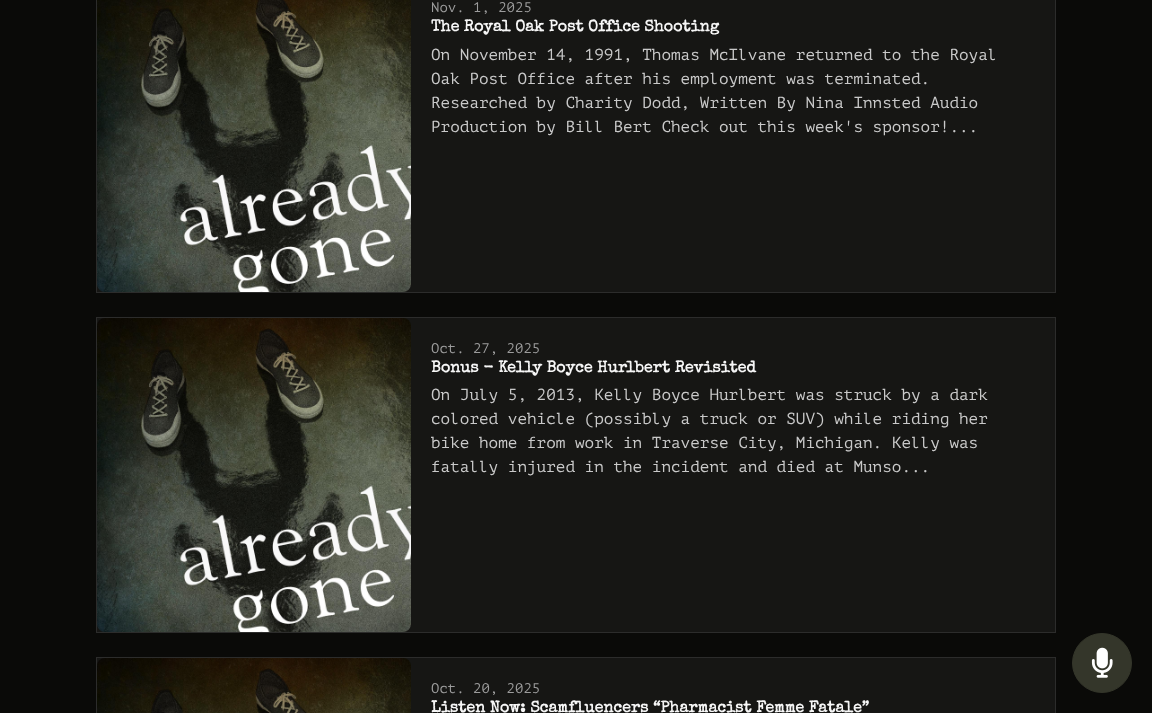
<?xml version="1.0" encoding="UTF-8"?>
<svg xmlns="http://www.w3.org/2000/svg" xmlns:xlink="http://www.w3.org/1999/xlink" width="1152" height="713">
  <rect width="100%" height="100%" fill="#0a0a08" />
  <rect x="96.5" y="-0.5" width="959" height="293" fill="#161614" stroke="#2c2c2b" />
  <image x="97" y="0" width="314" height="292" xlink:href="image1.png" />
  <rect x="96.5" y="317.5" width="959" height="315" fill="#161614" stroke="#2c2c2b" />
  <image x="97" y="318" width="314" height="314" xlink:href="image2.png" />
  <rect x="96.5" y="657.5" width="959" height="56" fill="#161614" stroke="#2c2c2b" />
  <image x="97" y="658" width="314" height="55" xlink:href="image3.png" />
  <circle cx="1102" cy="663" r="29.5" fill="#34362a" stroke="#34362a" />
  <image x="1091" y="647" width="22" height="31" xlink:href="image4.png" />
  <text x="431" y="12" style="font-family: PT Mono; font-size: 14px; fill: #9c9c9c">Nov. 1, 2025</text>
  <text x="431" y="31" style="font-family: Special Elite; font-size: 16px; font-weight: bold; fill: #f6f6f6">The Royal Oak Post Office Shooting</text>
  <text x="431" y="60" style="font-family: PT Mono; font-size: 16px; fill: #c9c9c9">On November 14, 1991, Thomas McIlvane returned to the Royal</text>
  <text x="431" y="84" style="font-family: PT Mono; font-size: 16px; fill: #c9c9c9">Oak Post Office after his employment was terminated.</text>
  <text x="431" y="108" style="font-family: PT Mono; font-size: 16px; fill: #c9c9c9">Researched by Charity Dodd, Written By Nina Innsted Audio</text>
  <text x="431" y="132" style="font-family: PT Mono; font-size: 16px; fill: #c9c9c9">Production by Bill Bert Check out this week's sponsor!...</text>
  <text x="431" y="353" style="font-family: PT Mono; font-size: 14px; fill: #9c9c9c">Oct. 27, 2025</text>
  <text x="431" y="372" style="font-family: Special Elite; font-size: 16px; font-weight: bold; fill: #f6f6f6">Bonus - Kelly Boyce Hurlbert Revisited</text>
  <text x="431" y="400" style="font-family: PT Mono; font-size: 16px; fill: #c9c9c9">On July 5, 2013, Kelly Boyce Hurlbert was struck by a dark</text>
  <text x="431" y="424" style="font-family: PT Mono; font-size: 16px; fill: #c9c9c9">colored vehicle (possibly a truck or SUV) while riding her</text>
  <text x="431" y="448" style="font-family: PT Mono; font-size: 16px; fill: #c9c9c9">bike home from work in Traverse City, Michigan. Kelly was</text>
  <text x="431" y="472" style="font-family: PT Mono; font-size: 16px; fill: #c9c9c9">fatally injured in the incident and died at Munso...</text>
  <text x="431" y="693" style="font-family: PT Mono; font-size: 14px; fill: #9c9c9c">Oct. 20, 2025</text>
  <text x="431" y="712" style="font-family: Special Elite; font-size: 16px; font-weight: bold; fill: #f6f6f6">Listen Now: Scamfluencers “Pharmacist Femme Fatale”</text>
</svg>
